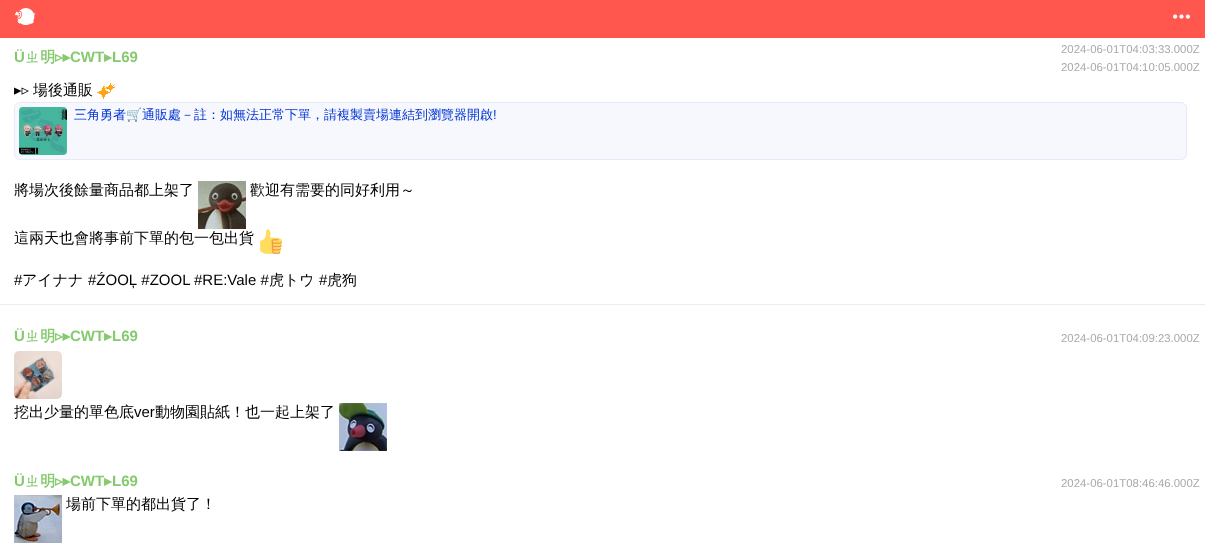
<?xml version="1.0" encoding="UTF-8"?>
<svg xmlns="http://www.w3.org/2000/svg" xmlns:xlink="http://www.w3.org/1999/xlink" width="1205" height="550">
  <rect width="100%" height="100%" fill="#ffffff" />
  <rect width="1205" height="38" fill="#ff574d" />
  <image x="15" y="8" width="21" height="18" xlink:href="image1.png" />
  <image x="1173" y="14" width="17" height="5" xlink:href="image2.png" />
  <rect y="304" width="1205" height="1" fill="#eeebf0" />
  <image x="97" y="83" width="18" height="16" xlink:href="image3.png" />
  <rect x="14.5" y="102.5" width="1172" height="57" rx="5.5" fill="#f6f8fe" stroke="#e5ebfb" />
  <image x="19" y="107" width="48" height="48" xlink:href="image4.png" />
  <image x="198" y="181" width="48" height="48" xlink:href="image5.png" />
  <image x="260" y="229" width="23" height="25" xlink:href="image6.png" />
  <image x="14" y="351" width="48" height="48" xlink:href="image7.png" />
  <image x="339" y="403" width="48" height="48" xlink:href="image8.png" />
  <image x="14" y="495" width="48" height="48" xlink:href="image9.png" />
  <text x="14" y="62" style="font-family: Liberation Sans; font-size: 15px; font-weight: bold; fill: #86ca6f">Ü</text>
  <text x="25" y="62" style="font-family: WenQuanYi Zen Hei; font-size: 15px; font-weight: bold; fill: #86ca6f">ㄓ明</text>
  <text x="55" y="62" style="font-family: DejaVu Sans; font-size: 15px; font-weight: bold; fill: #86ca6f">▹▸</text>
  <text x="70" y="62" style="font-family: Liberation Sans; font-size: 15px; font-weight: bold; fill: #86ca6f">CWT</text>
  <text x="104" y="62" style="font-family: DejaVu Sans; font-size: 15px; font-weight: bold; fill: #86ca6f">▸</text>
  <text x="112" y="62" style="font-family: Liberation Sans; font-size: 15px; font-weight: bold; fill: #86ca6f">L69</text>
  <text x="1061" y="53" style="font-family: Liberation Sans; font-size: 11.4px; fill: #aaaaaa">2024-06-01T04:03:33.000Z</text>
  <text x="1061" y="71" style="font-family: Liberation Sans; font-size: 11.4px; fill: #aaaaaa">2024-06-01T04:10:05.000Z</text>
  <text x="14" y="95" style="font-family: DejaVu Sans; font-size: 15px; fill: #000000">▸▹</text>
  <text x="33" y="95" style="font-family: WenQuanYi Zen Hei; font-size: 15px; font-weight: 500; fill: #000000">場後通販</text>
  <text x="74" y="119" style="font-family: WenQuanYi Zen Hei; font-size: 13px; font-weight: 500; fill: #0435d2">三角勇者</text>
  <text x="126" y="119" style="font-family: Noto Color Emoji; font-size: 13px; fill: #0435d2">🛒</text>
  <text x="142" y="119" style="font-family: WenQuanYi Zen Hei; font-size: 13px; font-weight: 500; fill: #0435d2">通販處－註：如無法正常下單，請複製賣場連結到瀏覽器開啟</text>
  <text x="493" y="119" style="font-family: Liberation Sans; font-size: 13px; fill: #0435d2">!</text>
  <text x="14" y="195" style="font-family: WenQuanYi Zen Hei; font-size: 15px; font-weight: 500; fill: #000000">將場次後餘量商品都上架了</text>
  <text x="250" y="195" style="font-family: WenQuanYi Zen Hei; font-size: 15px; font-weight: 500; fill: #000000">歡迎有需要的同好利用～</text>
  <text x="14" y="243" style="font-family: WenQuanYi Zen Hei; font-size: 15px; font-weight: 500; fill: #000000">這兩天也會將事前下單的包一包出貨</text>
  <text x="14" y="285" style="font-family: Liberation Sans; font-size: 15px; fill: #000000">#</text>
  <text x="22" y="285" style="font-family: WenQuanYi Zen Hei; font-size: 15px; font-weight: 500; fill: #000000">アイナナ</text>
  <text x="88" y="285" style="font-family: Liberation Sans; font-size: 15px; fill: #000000">#ŹOOĻ #ZOOL</text>
  <text x="194" y="285" style="font-family: Liberation Sans; font-size: 15px; fill: #000000">#RE:Vale #</text>
  <text x="269" y="285" style="font-family: WenQuanYi Zen Hei; font-size: 15px; font-weight: 500; fill: #000000">虎トウ</text>
  <text x="319" y="285" style="font-family: Liberation Sans; font-size: 15px; fill: #000000">#</text>
  <text x="327" y="285" style="font-family: WenQuanYi Zen Hei; font-size: 15px; font-weight: 500; fill: #000000">虎狗</text>
  <text x="14" y="341" style="font-family: Liberation Sans; font-size: 15px; font-weight: bold; fill: #86ca6f">Ü</text>
  <text x="25" y="341" style="font-family: WenQuanYi Zen Hei; font-size: 15px; font-weight: bold; fill: #86ca6f">ㄓ明</text>
  <text x="55" y="341" style="font-family: DejaVu Sans; font-size: 15px; font-weight: bold; fill: #86ca6f">▹▸</text>
  <text x="70" y="341" style="font-family: Liberation Sans; font-size: 15px; font-weight: bold; fill: #86ca6f">CWT</text>
  <text x="104" y="341" style="font-family: DejaVu Sans; font-size: 15px; font-weight: bold; fill: #86ca6f">▸</text>
  <text x="112" y="341" style="font-family: Liberation Sans; font-size: 15px; font-weight: bold; fill: #86ca6f">L69</text>
  <text x="1061" y="342" style="font-family: Liberation Sans; font-size: 11.4px; fill: #aaaaaa">2024-06-01T04:09:23.000Z</text>
  <text x="14" y="417" style="font-family: WenQuanYi Zen Hei; font-size: 15px; font-weight: 500; fill: #000000">挖出少量的單色底</text>
  <text x="134" y="417" style="font-family: Liberation Sans; font-size: 15px; fill: #000000">ver</text>
  <text x="155" y="417" style="font-family: WenQuanYi Zen Hei; font-size: 15px; font-weight: 500; fill: #000000">動物園貼紙！也一起上架了</text>
  <text x="14" y="486" style="font-family: Liberation Sans; font-size: 15px; font-weight: bold; fill: #86ca6f">Ü</text>
  <text x="25" y="486" style="font-family: WenQuanYi Zen Hei; font-size: 15px; font-weight: bold; fill: #86ca6f">ㄓ明</text>
  <text x="55" y="486" style="font-family: DejaVu Sans; font-size: 15px; font-weight: bold; fill: #86ca6f">▹▸</text>
  <text x="70" y="486" style="font-family: Liberation Sans; font-size: 15px; font-weight: bold; fill: #86ca6f">CWT</text>
  <text x="104" y="486" style="font-family: DejaVu Sans; font-size: 15px; font-weight: bold; fill: #86ca6f">▸</text>
  <text x="112" y="486" style="font-family: Liberation Sans; font-size: 15px; font-weight: bold; fill: #86ca6f">L69</text>
  <text x="1061" y="487" style="font-family: Liberation Sans; font-size: 11.4px; fill: #aaaaaa">2024-06-01T08:46:46.000Z</text>
  <text x="66" y="509" style="font-family: WenQuanYi Zen Hei; font-size: 15px; font-weight: 500; fill: #000000">場前下單的都出貨了！</text>
</svg>
